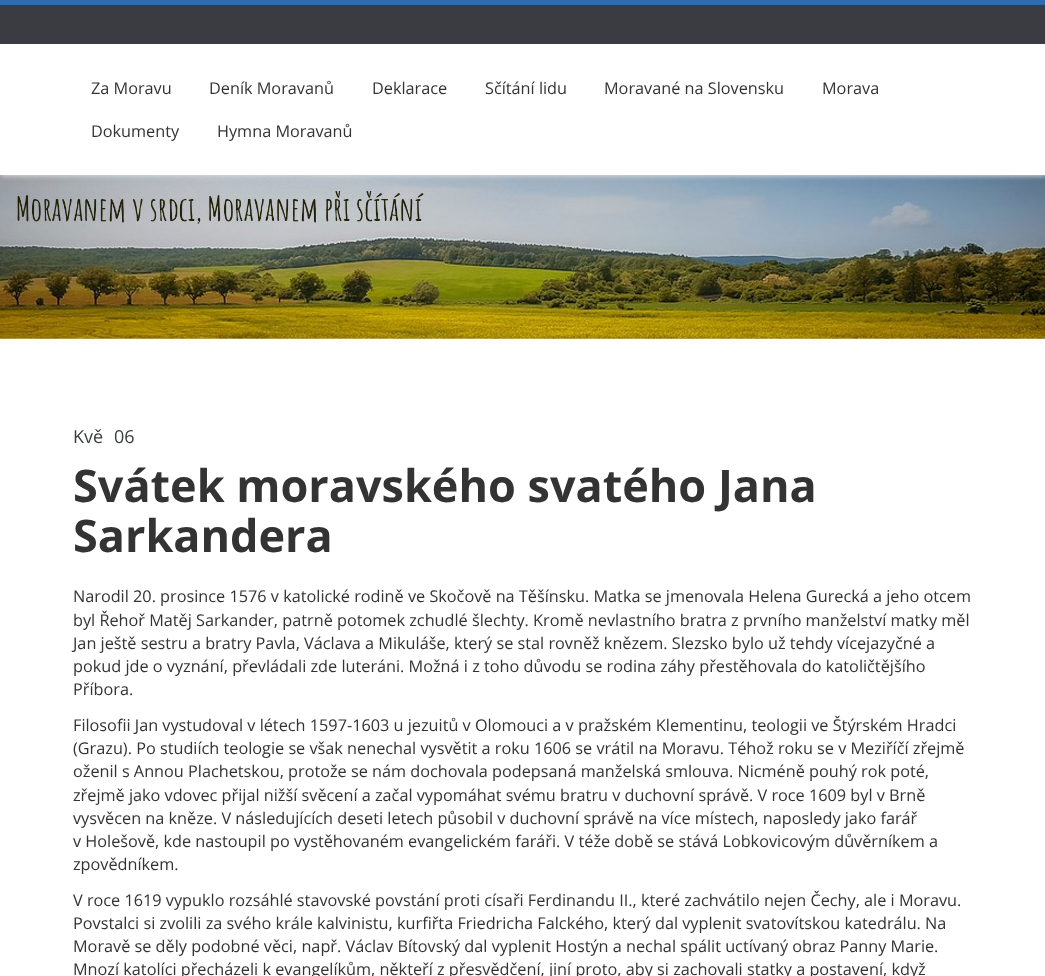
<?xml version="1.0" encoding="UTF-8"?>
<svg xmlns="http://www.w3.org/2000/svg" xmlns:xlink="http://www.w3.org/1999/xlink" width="1045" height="976">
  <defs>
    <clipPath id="clip1"><rect x="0" y="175" width="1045" height="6" /></clipPath>
  </defs>
  <rect width="100%" height="100%" fill="#ffffff" />
  <image x="0" y="175" width="1045" height="164" xlink:href="image1.png" />
  <g clip-path="url(#clip1)">
    <rect x="1" y="1" width="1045" height="175" fill="#dddddd" filter="blur(2.5px)" />
  </g>
  <rect y="5" width="1045" height="39" fill="#3a3c41" />
  <rect width="1045" height="5" fill="#306cab" />
  <text x="91" y="94" style="font-family: Open Sans; font-size: 16.25px; fill: #333333">Za Moravu</text>
  <text x="209" y="94" style="font-family: Open Sans; font-size: 16.25px; fill: #333333">Deník Moravanů</text>
  <text x="372" y="94" style="font-family: Open Sans; font-size: 16.25px; fill: #333333">Deklarace</text>
  <text x="485" y="94" style="font-family: Open Sans; font-size: 16.25px; fill: #333333">Sčítání lidu</text>
  <text x="604" y="94" style="font-family: Open Sans; font-size: 16.25px; fill: #333333">Moravané na Slovensku</text>
  <text x="822" y="94" style="font-family: Open Sans; font-size: 16.25px; fill: #333333">Morava</text>
  <text x="91" y="137" style="font-family: Open Sans; font-size: 16.25px; fill: #333333">Dokumenty</text>
  <text x="217" y="137" style="font-family: Open Sans; font-size: 16.25px; fill: #333333">Hymna Moravanů</text>
  <text x="73" y="443" style="font-family: Open Sans; font-size: 18px; fill: #3a3c41">Kvě</text>
  <text x="114" y="443" style="font-family: Open Sans; font-size: 18px; fill: #3a3c41">06</text>
  <text x="73" y="502" style="font-family: Open Sans; font-size: 45px; font-weight: bold; fill: #333333">Svátek moravského svatého Jana</text>
  <text x="73" y="552" style="font-family: Open Sans; font-size: 45px; font-weight: bold; fill: #333333">Sarkandera</text>
  <text x="73" y="602" style="font-family: Open Sans; font-size: 16.25px; fill: #333333">Narodil 20. prosince 1576 v katolické rodině ve Skočově na Těšínsku. Matka se jmenovala Helena Gurecká a jeho otcem</text>
  <text x="73" y="626" style="font-family: Open Sans; font-size: 16.25px; fill: #333333">byl Řehoř Matěj Sarkander, patrně potomek zchudlé šlechty. Kromě nevlastního bratra z prvního manželství matky měl</text>
  <text x="73" y="649" style="font-family: Open Sans; font-size: 16.25px; fill: #333333">Jan ještě sestru a bratry Pavla, Václava a Mikuláše, který se stal rovněž knězem. Slezsko bylo už tehdy vícejazyčné a</text>
  <text x="73" y="672" style="font-family: Open Sans; font-size: 16.25px; fill: #333333">pokud jde o vyznání, převládali zde luteráni. Možná i z toho důvodu se rodina záhy přestěhovala do katoličtějšího</text>
  <text x="73" y="695" style="font-family: Open Sans; font-size: 16.25px; fill: #333333">Příbora.</text>
  <text x="73" y="731" style="font-family: Open Sans; font-size: 16.25px; fill: #333333">Filosofii Jan vystudoval v létech 1597-1603 u jezuitů v Olomouci a v pražském Klementinu, teologii ve Štýrském Hradci</text>
  <text x="73" y="754" style="font-family: Open Sans; font-size: 16.25px; fill: #333333">(Grazu). Po studiích teologie se však nenechal vysvětit a roku 1606 se vrátil na Moravu. Téhož roku se v Meziříčí zřejmě</text>
  <text x="73" y="777" style="font-family: Open Sans; font-size: 16.25px; fill: #333333">oženil s Annou Plachetskou, protože se nám dochovala podepsaná manželská smlouva. Nicméně pouhý rok poté,</text>
  <text x="73" y="801" style="font-family: Open Sans; font-size: 16.25px; fill: #333333">zřejmě jako vdovec přijal nižší svěcení a začal vypomáhat svému bratru v duchovní správě. V roce 1609 byl v Brně</text>
  <text x="73" y="824" style="font-family: Open Sans; font-size: 16.25px; fill: #333333">vysvěcen na kněze. V následujících deseti letech působil v duchovní správě na více místech, naposledy jako farář</text>
  <text x="73" y="847" style="font-family: Open Sans; font-size: 16.25px; fill: #333333">v Holešově, kde nastoupil po vystěhovaném evangelickém faráři. V téže době se stává Lobkovicovým důvěrníkem a</text>
  <text x="73" y="870" style="font-family: Open Sans; font-size: 16.25px; fill: #333333">zpovědníkem.</text>
  <text x="73" y="906" style="font-family: Open Sans; font-size: 16.25px; fill: #333333">V roce 1619 vypuklo rozsáhlé stavovské povstání proti císaři Ferdinandu II., které zachvátilo nejen Čechy, ale i Moravu.</text>
  <text x="73" y="929" style="font-family: Open Sans; font-size: 16.25px; fill: #333333">Povstalci si zvolili za svého krále kalvinistu, kurfiřta Friedricha Falckého, který dal vyplenit svatovítskou katedrálu. Na</text>
  <text x="73" y="952" style="font-family: Open Sans; font-size: 16.25px; fill: #333333">Moravě se děly podobné věci, např. Václav Bítovský dal vyplenit Hostýn a nechal spálit uctívaný obraz Panny Marie.</text>
  <text x="73" y="975" style="font-family: Open Sans; font-size: 16.25px; fill: #333333">Mnozí katolíci přecházeli k evangelíkům, někteří z přesvědčení, jiní proto, aby si zachovali statky a postavení, když</text>
</svg>
